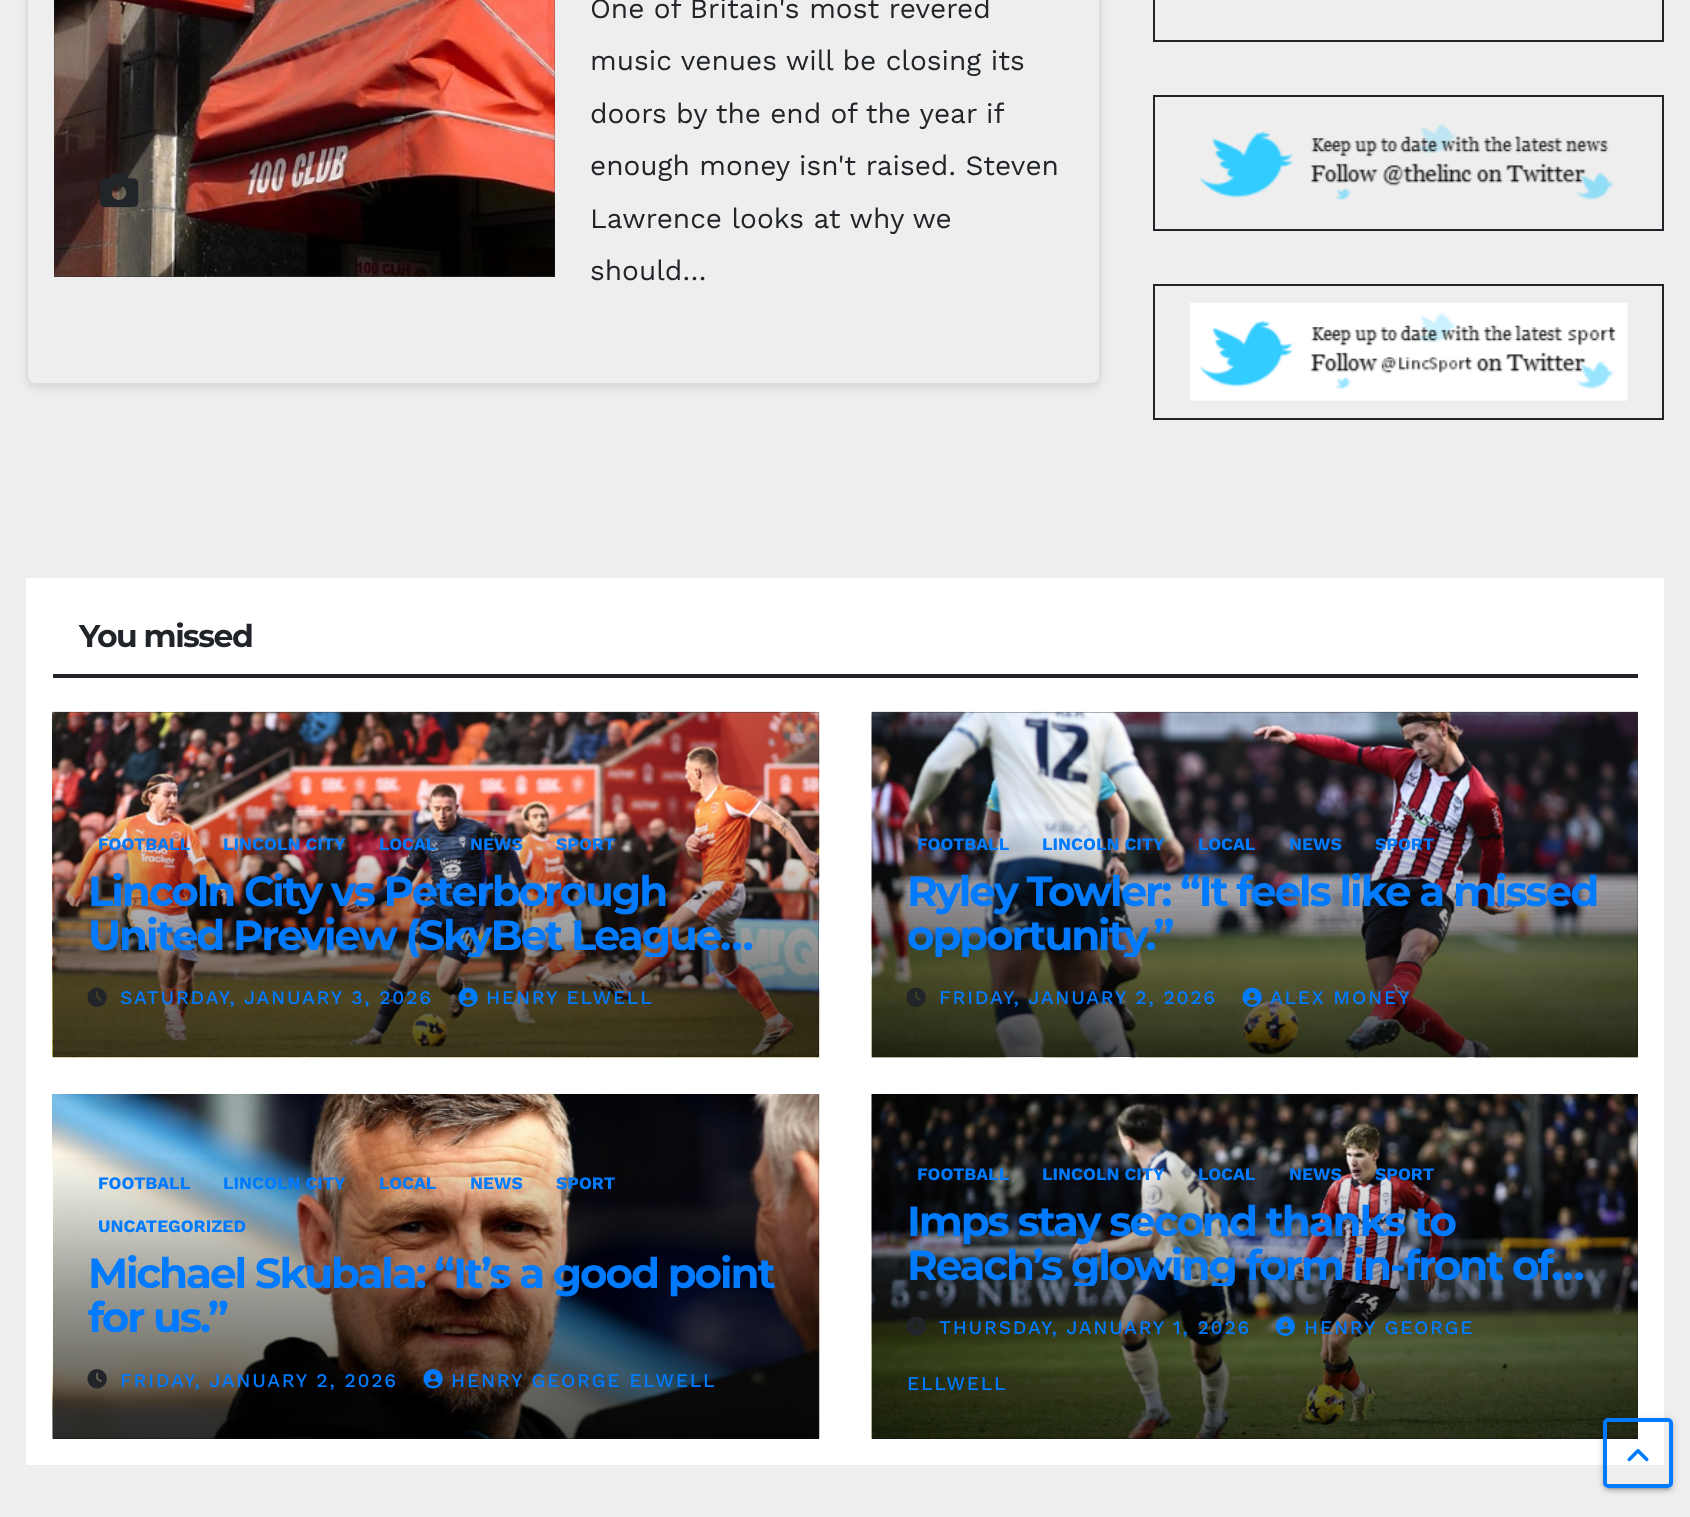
<?xml version="1.0" encoding="UTF-8"?>
<svg xmlns="http://www.w3.org/2000/svg" xmlns:xlink="http://www.w3.org/1999/xlink" width="1690" height="1517">
  <defs>
    <clipPath id="clip1"><path d="M 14 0 h 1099 v 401 h -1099 z m 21 -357 h 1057 c 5 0 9 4 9 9 v 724 c 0 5 -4 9 -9 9 h -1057 c -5 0 -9 -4 -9 -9 v -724 c 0 -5 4 -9 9 -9 z" clip-rule="evenodd" /></clipPath>
    <linearGradient id="g1" gradientUnits="userSpaceOnUse" x1="436" y1="812" x2="436" y2="1057"><stop offset="0" stop-color="#000000" stop-opacity="0" /><stop offset="0.5" stop-color="#000000" stop-opacity="0.4" /><stop offset="1" stop-color="#000000" stop-opacity="0.7" /></linearGradient>
    <linearGradient id="g2" gradientUnits="userSpaceOnUse" x1="1255" y1="812" x2="1255" y2="1057"><stop offset="0" stop-color="#000000" stop-opacity="0" /><stop offset="0.5" stop-color="#000000" stop-opacity="0.4" /><stop offset="1" stop-color="#000000" stop-opacity="0.7" /></linearGradient>
    <linearGradient id="g3" gradientUnits="userSpaceOnUse" x1="436" y1="1150" x2="436" y2="1439"><stop offset="0" stop-color="#000000" stop-opacity="0" /><stop offset="0.5" stop-color="#000000" stop-opacity="0.4" /><stop offset="1" stop-color="#000000" stop-opacity="0.7" /></linearGradient>
    <linearGradient id="g4" gradientUnits="userSpaceOnUse" x1="1255" y1="1141" x2="1255" y2="1439"><stop offset="0" stop-color="#000000" stop-opacity="0" /><stop offset="0.5" stop-color="#000000" stop-opacity="0.4" /><stop offset="1" stop-color="#000000" stop-opacity="0.7" /></linearGradient>
    <clipPath id="clip2"><path d="M 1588 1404 h 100 v 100 h -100 z m 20 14 h 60 c 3 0 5 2 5 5 v 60 c 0 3 -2 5 -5 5 h -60 c -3 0 -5 -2 -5 -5 v -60 c 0 -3 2 -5 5 -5 z" clip-rule="evenodd" /></clipPath>
    <clipPath id="clip3"><path d="M 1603 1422 h 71 v 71 h -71 z m 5 -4 h 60 c 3 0 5 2 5 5 v 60 c 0 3 -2 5 -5 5 h -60 c -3 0 -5 -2 -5 -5 v -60 c 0 -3 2 -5 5 -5 z" clip-rule="evenodd" /></clipPath>
    <clipPath id="clip4"><path d="M 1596 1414 h 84 v 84 h -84 z m 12 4 h 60 c 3 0 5 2 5 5 v 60 c 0 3 -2 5 -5 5 h -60 c -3 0 -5 -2 -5 -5 v -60 c 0 -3 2 -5 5 -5 z" clip-rule="evenodd" /></clipPath>
    <clipPath id="clip5"><rect x="88" y="870" width="696" height="87" /></clipPath>
    <clipPath id="clip6"><rect x="907" y="870" width="696" height="87" /></clipPath>
    <clipPath id="clip7"><rect x="88" y="1251" width="696" height="88" /></clipPath>
    <clipPath id="clip8"><rect x="907" y="1199" width="696" height="87" /></clipPath>
  </defs>
  <rect width="100%" height="100%" fill="#eeeeee" />
  <g clip-path="url(#clip1)">
    <rect x="26" y="-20" width="1075" height="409" rx="9" fill="#000000" fill-opacity="0.08" filter="blur(3.5px)" />
  </g>
  <rect x="27" y="-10" width="1073" height="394" rx="8" fill="none" stroke="#dddcdc" stroke-width="2" />
  <rect x="54" width="501" height="277" fill="#333333" />
  <image x="54" y="0" width="501" height="277" xlink:href="image1.png" />
  <image x="99" y="173" width="40" height="35" xlink:href="image2.png" />
  <rect x="1154" y="-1" width="509" height="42" fill="none" stroke="#212529" stroke-width="2" />
  <rect x="1154" y="96" width="509" height="134" fill="none" stroke="#212529" stroke-width="2" />
  <image x="1199" y="123" width="415" height="78" xlink:href="image3.png" />
  <rect x="1154" y="285" width="509" height="134" fill="none" stroke="#212529" stroke-width="2" />
  <image x="1189" y="302" width="439" height="99" xlink:href="image4.png" />
  <rect x="26" y="578" width="1638" height="887" fill="#ffffff" />
  <rect x="53" y="674" width="1585" height="4" fill="#212529" />
  <rect x="53" y="712" width="766" height="345" fill="#333333" />
  <image x="52" y="711" width="768" height="347" xlink:href="image5.png" />
  <rect x="53" y="819" width="766" height="238" fill="url(#g1)" />
  <image x="87" y="987" width="20" height="20" xlink:href="image6.png" />
  <image x="458" y="987" width="20" height="20" xlink:href="image7.png" />
  <rect x="872" y="712" width="766" height="345" fill="#333333" />
  <image x="871" y="711" width="767" height="347" xlink:href="image8.png" />
  <rect x="872" y="819" width="766" height="238" fill="url(#g2)" />
  <image x="906" y="987" width="20" height="20" xlink:href="image9.png" />
  <image x="1242" y="987" width="20" height="20" xlink:href="image10.png" />
  <rect x="53" y="1094" width="766" height="345" fill="#333333" />
  <image x="52" y="1094" width="768" height="345" xlink:href="image11.png" />
  <rect x="53" y="1158" width="766" height="281" fill="url(#g3)" />
  <image x="87" y="1369" width="20" height="20" xlink:href="image12.png" />
  <image x="423" y="1369" width="20" height="20" xlink:href="image13.png" />
  <rect x="872" y="1094" width="766" height="345" fill="#333333" />
  <image x="871" y="1094" width="767" height="345" xlink:href="image14.png" />
  <rect x="872" y="1149" width="766" height="290" fill="url(#g4)" />
  <image x="1275" y="1316" width="20" height="20" xlink:href="image15.png" />
  <image x="906" y="1316" width="20" height="20" xlink:href="image16.png" />
  <g clip-path="url(#clip2)">
    <rect x="1603" y="1419" width="70" height="70" rx="5" fill="#000000" fill-opacity="0.12" filter="blur(4.5px)" />
  </g>
  <g clip-path="url(#clip3)">
    <rect x="1607" y="1426" width="63" height="63" rx="2" fill="#000000" fill-opacity="0.2" filter="blur(1px)" />
  </g>
  <g clip-path="url(#clip4)">
    <rect x="1603" y="1421" width="70" height="70" rx="5" fill="#000000" fill-opacity="0.14" filter="blur(2px)" />
  </g>
  <rect x="1605" y="1420" width="66" height="66" rx="3" fill="none" stroke="#007bff" stroke-width="4" />
  <image x="1627" y="1449" width="22" height="13" xlink:href="image17.png" />
  <text x="590" y="18" style="font-family: Work Sans; font-size: 28px; fill: #212529">One of Britain's most revered</text>
  <text x="590" y="70" style="font-family: Work Sans; font-size: 28px; fill: #212529">music venues will be closing its</text>
  <text x="590" y="123" word-spacing="-0.25" style="font-family: Work Sans; font-size: 28px; fill: #212529">doors by the end of the year if</text>
  <text x="590" y="175" style="font-family: Work Sans; font-size: 28px; fill: #212529">enough money isn't raised. Steven</text>
  <text x="590" y="228" style="font-family: Work Sans; font-size: 28px; fill: #212529">Lawrence looks at why we</text>
  <text x="590" y="280" style="font-family: Work Sans; font-size: 28px; fill: #212529">should…</text>
  <text x="79" y="647" style="font-family: Montserrat; font-size: 31.5px; font-weight: bold; letter-spacing: -1.5px; fill: #212529">You missed</text>
  <text x="98" y="850" style="font-family: Work Sans; font-size: 17.5px; font-weight: bold; fill: #007bff">FOOTBALL</text>
  <text x="223" y="850" style="font-family: Work Sans; font-size: 17.5px; font-weight: bold; fill: #007bff">LINCOLN CITY</text>
  <text x="379" y="850" style="font-family: Work Sans; font-size: 17.5px; font-weight: bold; fill: #007bff">LOCAL</text>
  <text x="470" y="850" style="font-family: Work Sans; font-size: 17.5px; font-weight: bold; fill: #007bff">NEWS</text>
  <text x="556" y="850" style="font-family: Work Sans; font-size: 17.5px; font-weight: bold; fill: #007bff">SPORT</text>
  <text x="88" y="906" style="font-family: Montserrat; font-size: 42px; font-weight: bold; letter-spacing: -2.1px; fill: #007bff">Lincoln City vs Peterborough</text>
  <g clip-path="url(#clip5)">
    <text x="88" y="950" style="font-family: Montserrat; font-size: 42px; font-weight: bold; letter-spacing: -2.1px; fill: #007bff">United Preview (SkyBet League…</text>
  </g>
  <text x="120" y="1004" style="font-family: Work Sans; font-size: 19.25px; font-weight: 500; letter-spacing: 1.75px; fill: #007bff">SATURDAY, JANUARY 3, 2026</text>
  <text x="486" y="1004" style="font-family: Work Sans; font-size: 19.25px; font-weight: 500; letter-spacing: 1.75px; fill: #007bff">HENRY ELWELL</text>
  <text x="917" y="850" style="font-family: Work Sans; font-size: 17.5px; font-weight: bold; fill: #007bff">FOOTBALL</text>
  <text x="1042" y="850" style="font-family: Work Sans; font-size: 17.5px; font-weight: bold; fill: #007bff">LINCOLN CITY</text>
  <text x="1198" y="850" style="font-family: Work Sans; font-size: 17.5px; font-weight: bold; fill: #007bff">LOCAL</text>
  <text x="1289" y="850" style="font-family: Work Sans; font-size: 17.5px; font-weight: bold; fill: #007bff">NEWS</text>
  <text x="1375" y="850" style="font-family: Work Sans; font-size: 17.5px; font-weight: bold; fill: #007bff">SPORT</text>
  <text x="907" y="906" style="font-family: Montserrat; font-size: 42px; font-weight: bold; letter-spacing: -2.1px; fill: #007bff">Ryley Towler: “It feels like a missed</text>
  <g clip-path="url(#clip6)">
    <text x="907" y="950" style="font-family: Montserrat; font-size: 42px; font-weight: bold; letter-spacing: -2.1px; fill: #007bff">opportunity.”</text>
  </g>
  <text x="939" y="1004" style="font-family: Work Sans; font-size: 19.25px; font-weight: 500; letter-spacing: 1.75px; fill: #007bff">FRIDAY, JANUARY 2, 2026</text>
  <text x="1270" y="1004" style="font-family: Work Sans; font-size: 19.25px; font-weight: 500; letter-spacing: 1.75px; fill: #007bff">ALEX MONEY</text>
  <text x="98" y="1189" style="font-family: Work Sans; font-size: 17.5px; font-weight: bold; fill: #007bff">FOOTBALL</text>
  <text x="223" y="1189" style="font-family: Work Sans; font-size: 17.5px; font-weight: bold; fill: #007bff">LINCOLN CITY</text>
  <text x="379" y="1189" style="font-family: Work Sans; font-size: 17.5px; font-weight: bold; fill: #007bff">LOCAL</text>
  <text x="470" y="1189" style="font-family: Work Sans; font-size: 17.5px; font-weight: bold; fill: #007bff">NEWS</text>
  <text x="556" y="1189" style="font-family: Work Sans; font-size: 17.5px; font-weight: bold; fill: #007bff">SPORT</text>
  <text x="98" y="1232" style="font-family: Work Sans; font-size: 17.5px; font-weight: bold; fill: #007bff">UNCATEGORIZED</text>
  <text x="88" y="1288" style="font-family: Montserrat; font-size: 42px; font-weight: bold; letter-spacing: -2.1px; fill: #007bff">Michael Skubala: “It’s a good point</text>
  <g clip-path="url(#clip7)">
    <text x="88" y="1332" style="font-family: Montserrat; font-size: 42px; font-weight: bold; letter-spacing: -2.1px; fill: #007bff">for us.”</text>
  </g>
  <text x="120" y="1387" style="font-family: Work Sans; font-size: 19.25px; font-weight: 500; letter-spacing: 1.75px; fill: #007bff">FRIDAY, JANUARY 2, 2026</text>
  <text x="451" y="1387" style="font-family: Work Sans; font-size: 19.25px; font-weight: 500; letter-spacing: 1.75px; fill: #007bff">HENRY GEORGE ELWELL</text>
  <text x="917" y="1180" style="font-family: Work Sans; font-size: 17.5px; font-weight: bold; fill: #007bff">FOOTBALL</text>
  <text x="1042" y="1180" style="font-family: Work Sans; font-size: 17.5px; font-weight: bold; fill: #007bff">LINCOLN CITY</text>
  <text x="1198" y="1180" style="font-family: Work Sans; font-size: 17.5px; font-weight: bold; fill: #007bff">LOCAL</text>
  <text x="1289" y="1180" style="font-family: Work Sans; font-size: 17.5px; font-weight: bold; fill: #007bff">NEWS</text>
  <text x="1375" y="1180" style="font-family: Work Sans; font-size: 17.5px; font-weight: bold; fill: #007bff">SPORT</text>
  <text x="907" y="1236" style="font-family: Montserrat; font-size: 42px; font-weight: bold; letter-spacing: -2.1px; fill: #007bff">Imps stay second thanks to</text>
  <g clip-path="url(#clip8)">
    <text x="907" y="1280" style="font-family: Montserrat; font-size: 42px; font-weight: bold; letter-spacing: -2.1px; fill: #007bff">Reach’s glowing form in-front of…</text>
  </g>
  <text x="1304" y="1334" style="font-family: Work Sans; font-size: 19.25px; font-weight: 500; letter-spacing: 1.75px; fill: #007bff">HENRY GEORGE</text>
  <text x="907" y="1390" style="font-family: Work Sans; font-size: 19.25px; font-weight: 500; letter-spacing: 1.75px; fill: #007bff">ELLWELL</text>
  <text x="939" y="1334" style="font-family: Work Sans; font-size: 19.25px; font-weight: 500; letter-spacing: 1.75px; fill: #007bff">THURSDAY, JANUARY 1, 2026</text>
</svg>
